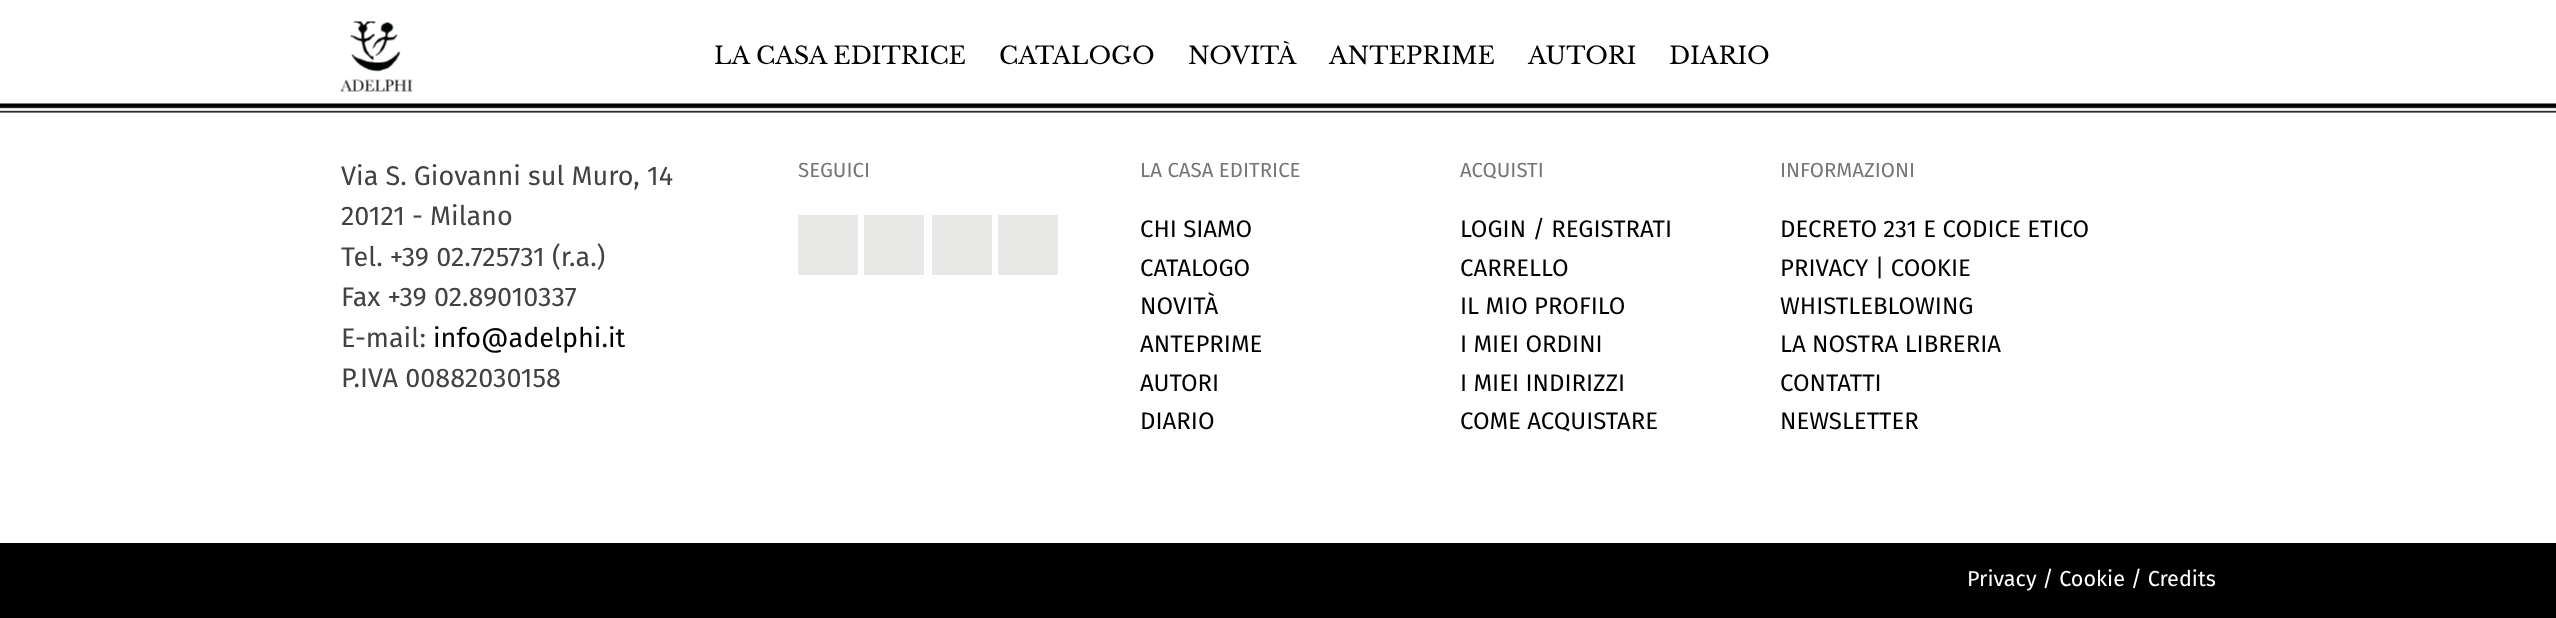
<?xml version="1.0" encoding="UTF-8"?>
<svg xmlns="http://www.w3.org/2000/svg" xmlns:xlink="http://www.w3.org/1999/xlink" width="2556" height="618">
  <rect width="100%" height="100%" fill="#ffffff" />
  <image x="0" y="103" width="2556" height="10" xlink:href="image1.png" />
  <image x="340" y="21" width="73" height="71" xlink:href="image2.png" />
  <rect x="798" y="215" width="60" height="60" fill="#e8e8e6" />
  <rect x="864" y="215" width="60" height="60" fill="#e8e8e6" />
  <rect x="932" y="215" width="60" height="60" fill="#e8e8e6" />
  <rect x="998" y="215" width="60" height="60" fill="#e8e8e6" />
  <rect y="543" width="2556" height="75" fill="#000000" />
  <text x="714" y="64" style="font-family: Libre Baskerville; font-size: 24px; fill: #000000">LA CASA EDITRICE</text>
  <text x="999" y="64" style="font-family: Libre Baskerville; font-size: 24px; fill: #000000">CATALOGO</text>
  <text x="1188" y="64" style="font-family: Libre Baskerville; font-size: 24px; fill: #000000">NOVITÀ</text>
  <text x="1329" y="64" style="font-family: Libre Baskerville; font-size: 24px; fill: #000000">ANTEPRIME</text>
  <text x="1528" y="64" style="font-family: Libre Baskerville; font-size: 24px; fill: #000000">AUTORI</text>
  <text x="1669" y="64" style="font-family: Libre Baskerville; font-size: 24px; fill: #000000">DIARIO</text>
  <text x="341" y="185" style="font-family: Fira Sans; font-size: 27px; fill: #424242">Via S. Giovanni sul Muro, 14</text>
  <text x="341" y="225" style="font-family: Fira Sans; font-size: 27px; fill: #424242">20121 - Milano</text>
  <text x="341" y="266" style="font-family: Fira Sans; font-size: 27px; fill: #424242">Tel. +39 02.725731 (r.a.)</text>
  <text x="341" y="306" style="font-family: Fira Sans; font-size: 27px; fill: #424242">Fax +39 02.89010337</text>
  <text x="341" y="347" style="font-family: Fira Sans; font-size: 27px; fill: #424242">E-mail:</text>
  <text x="433" y="347" style="font-family: Fira Sans; font-size: 27px; fill: #000000">info@adelphi.it</text>
  <text x="341" y="387" style="font-family: Fira Sans; font-size: 27px; fill: #424242">P.IVA 00882030158</text>
  <text x="798" y="177" style="font-family: Fira Sans; font-size: 20.5px; fill: #767676">SEGUICI</text>
  <text x="1140" y="177" style="font-family: Fira Sans; font-size: 20.5px; fill: #767676">LA CASA EDITRICE</text>
  <text x="1140" y="237" style="font-family: Fira Sans; font-size: 24px; fill: #000000">CHI SIAMO</text>
  <text x="1140" y="276" style="font-family: Fira Sans; font-size: 24px; fill: #000000">CATALOGO</text>
  <text x="1140" y="314" style="font-family: Fira Sans; font-size: 24px; fill: #000000">NOVITÀ</text>
  <text x="1140" y="352" style="font-family: Fira Sans; font-size: 24px; fill: #000000">ANTEPRIME</text>
  <text x="1140" y="391" style="font-family: Fira Sans; font-size: 24px; fill: #000000">AUTORI</text>
  <text x="1140" y="429" style="font-family: Fira Sans; font-size: 24px; fill: #000000">DIARIO</text>
  <text x="1460" y="177" style="font-family: Fira Sans; font-size: 20.5px; fill: #767676">ACQUISTI</text>
  <text x="1460" y="237" style="font-family: Fira Sans; font-size: 24px; fill: #000000">LOGIN / REGISTRATI</text>
  <text x="1460" y="276" style="font-family: Fira Sans; font-size: 24px; fill: #000000">CARRELLO</text>
  <text x="1460" y="314" style="font-family: Fira Sans; font-size: 24px; fill: #000000">IL MIO PROFILO</text>
  <text x="1460" y="352" style="font-family: Fira Sans; font-size: 24px; fill: #000000">I MIEI ORDINI</text>
  <text x="1460" y="391" style="font-family: Fira Sans; font-size: 24px; fill: #000000">I MIEI INDIRIZZI</text>
  <text x="1460" y="429" style="font-family: Fira Sans; font-size: 24px; fill: #000000">COME ACQUISTARE</text>
  <text x="1780" y="177" style="font-family: Fira Sans; font-size: 20.5px; fill: #767676">INFORMAZIONI</text>
  <text x="1780" y="237" style="font-family: Fira Sans; font-size: 24px; fill: #000000">DECRETO 231 E CODICE ETICO</text>
  <text x="1780" y="276" style="font-family: Fira Sans; font-size: 24px; fill: #000000">PRIVACY | COOKIE</text>
  <text x="1780" y="314" style="font-family: Fira Sans; font-size: 24px; fill: #000000">WHISTLEBLOWING</text>
  <text x="1780" y="352" style="font-family: Fira Sans; font-size: 24px; fill: #000000">LA NOSTRA LIBRERIA</text>
  <text x="1780" y="391" style="font-family: Fira Sans; font-size: 24px; fill: #000000">CONTATTI</text>
  <text x="1780" y="429" style="font-family: Fira Sans; font-size: 24px; fill: #000000">NEWSLETTER</text>
  <text x="1967" y="586" style="font-family: Fira Sans; font-size: 21.6px; fill: #ffffff">Privacy / Cookie / Credits</text>
</svg>
